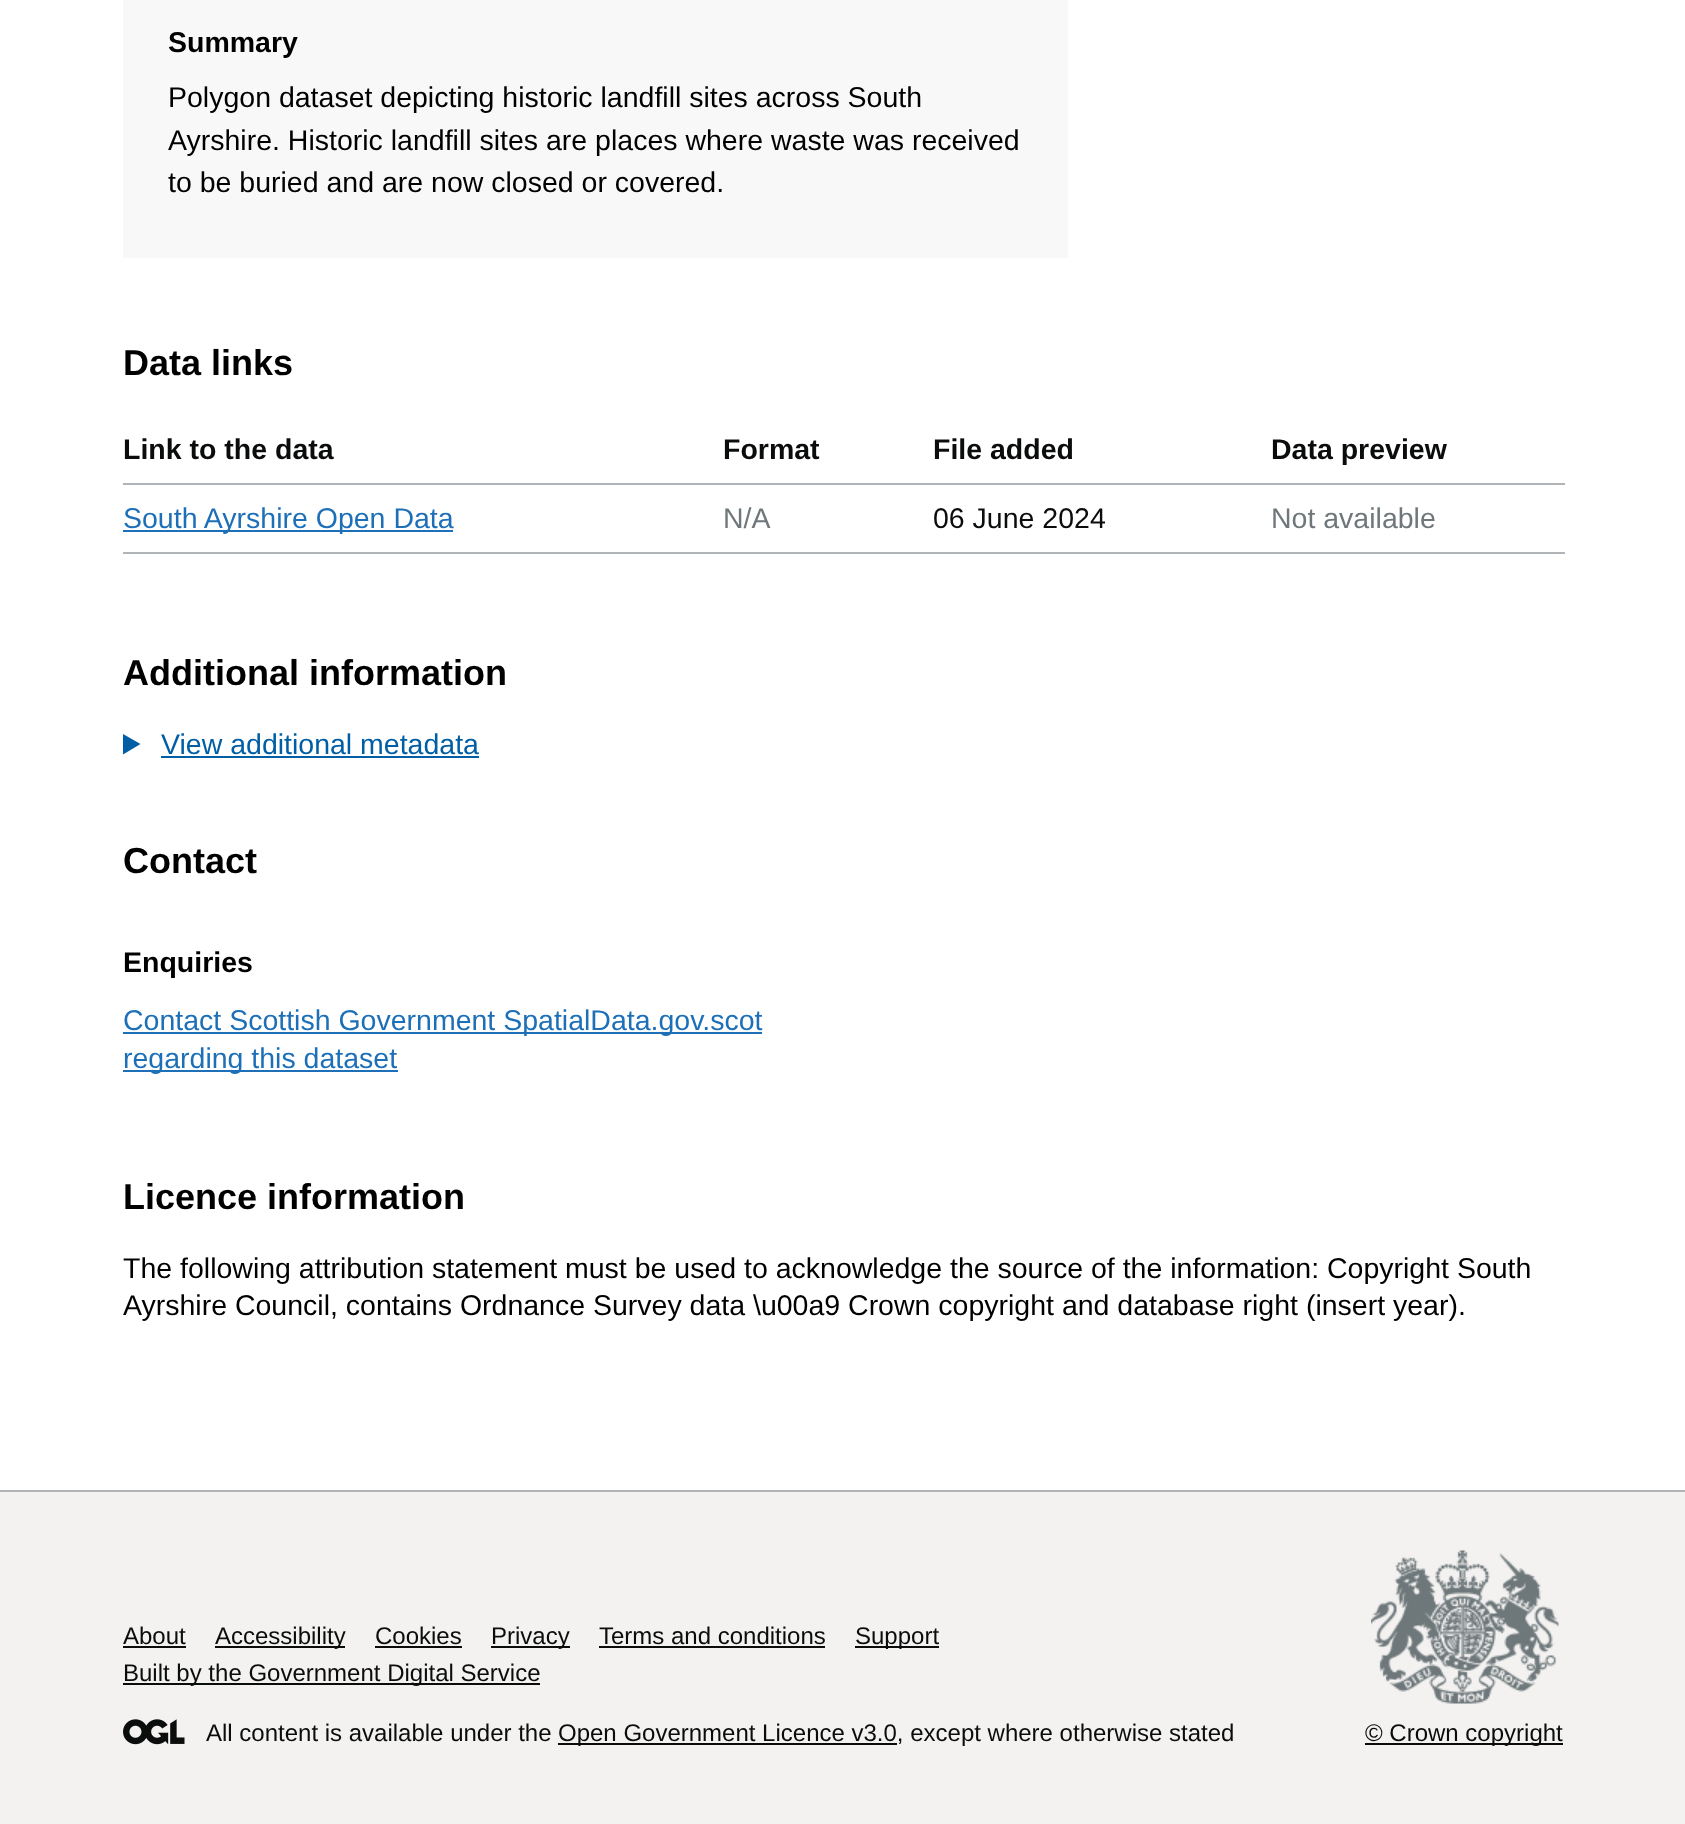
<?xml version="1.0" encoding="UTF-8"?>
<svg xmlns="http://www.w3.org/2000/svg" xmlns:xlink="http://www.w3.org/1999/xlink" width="1685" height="1824">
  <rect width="100%" height="100%" fill="#ffffff" />
  <rect x="123" width="945" height="258" fill="#f8f8f8" />
  <rect x="123" y="483" width="1442" height="2" fill="#b1b4b6" />
  <rect x="123" y="530" width="330" height="2" fill="#1d70b8" />
  <rect x="123" y="552" width="1442" height="2" fill="#b1b4b6" />
  <path d="M 123 754.5 l 17.5 -10.5 l -17.5 -10 z" fill="#005ea5" />
  <rect x="161" y="756" width="318" height="2" fill="#005ea5" />
  <rect x="123" y="1032" width="639" height="2" fill="#1d70b8" />
  <rect x="123" y="1070" width="275" height="2" fill="#1d70b8" />
  <rect y="1492" width="1685" height="332" fill="#f3f2f1" />
  <rect y="1490" width="1685" height="2" fill="#b1b4b6" />
  <rect x="123" y="1646" width="63" height="2" fill="#0b0c0c" />
  <rect x="215" y="1646" width="130" height="2" fill="#0b0c0c" />
  <rect x="375" y="1646" width="87" height="2" fill="#0b0c0c" />
  <rect x="491" y="1646" width="79" height="2" fill="#0b0c0c" />
  <rect x="599" y="1646" width="226" height="2" fill="#0b0c0c" />
  <rect x="855" y="1646" width="84" height="2" fill="#0b0c0c" />
  <rect x="123" y="1683" width="417" height="2" fill="#0b0c0c" />
  <image x="123" y="1719" width="62" height="26" xlink:href="image1.png" />
  <rect x="558" y="1743" width="339" height="2" fill="#0b0c0c" />
  <image x="1371" y="1550" width="188" height="154" xlink:href="image2.png" />
  <rect x="1365" y="1743" width="198" height="2" fill="#0b0c0c" />
  <text x="168" y="52" style="font-family: Liberation Sans; font-size: 28.5px; font-weight: bold; fill: #000000">Summary</text>
  <text x="168" y="107" style="font-family: Liberation Sans; font-size: 28.5px; fill: #000000">Polygon dataset depicting historic landfill sites across South</text>
  <text x="168" y="150" style="font-family: Liberation Sans; font-size: 28.5px; fill: #000000">Ayrshire. Historic landfill sites are places where waste was received</text>
  <text x="168" y="192" style="font-family: Liberation Sans; font-size: 28.5px; fill: #000000">to be buried and are now closed or covered.</text>
  <text x="123" y="375" style="font-family: Liberation Sans; font-size: 36px; font-weight: bold; fill: #000000">Data links</text>
  <text x="123" y="459" style="font-family: Liberation Sans; font-size: 28.5px; font-weight: bold; fill: #0b0c0c">Link to the data</text>
  <text x="723" y="459" style="font-family: Liberation Sans; font-size: 28.5px; font-weight: bold; fill: #0b0c0c">Format</text>
  <text x="933" y="459" style="font-family: Liberation Sans; font-size: 28.5px; font-weight: bold; fill: #0b0c0c">File added</text>
  <text x="1271" y="459" style="font-family: Liberation Sans; font-size: 28.5px; font-weight: bold; fill: #0b0c0c">Data preview</text>
  <text x="123" y="528" style="font-family: Liberation Sans; font-size: 28.5px; fill: #1d70b8">South Ayrshire Open Data</text>
  <text x="723" y="528" style="font-family: Liberation Sans; font-size: 28.5px; fill: #6f777b">N/A</text>
  <text x="933" y="528" style="font-family: Liberation Sans; font-size: 28.5px; fill: #0b0c0c">06 June 2024</text>
  <text x="1271" y="528" style="font-family: Liberation Sans; font-size: 28.5px; fill: #6f777b">Not available</text>
  <text x="123" y="685" style="font-family: Liberation Sans; font-size: 36px; font-weight: bold; fill: #000000">Additional information</text>
  <text x="161" y="754" style="font-family: Liberation Sans; font-size: 28.5px; fill: #005ea5">View additional metadata</text>
  <text x="123" y="873" style="font-family: Liberation Sans; font-size: 36px; font-weight: bold; fill: #000000">Contact</text>
  <text x="123" y="972" style="font-family: Liberation Sans; font-size: 28.5px; font-weight: bold; fill: #000000">Enquiries</text>
  <text x="123" y="1030" style="font-family: Liberation Sans; font-size: 28.5px; fill: #1d70b8">Contact Scottish Government SpatialData.gov.scot</text>
  <text x="123" y="1068" style="font-family: Liberation Sans; font-size: 28.5px; fill: #1d70b8">regarding this dataset</text>
  <text x="123" y="1209" style="font-family: Liberation Sans; font-size: 36px; font-weight: bold; fill: #000000">Licence information</text>
  <text x="123" y="1278" style="font-family: Liberation Sans; font-size: 28.5px; fill: #000000">The following attribution statement must be used to acknowledge the source of the information: Copyright South</text>
  <text x="123" y="1315" style="font-family: Liberation Sans; font-size: 28.5px; fill: #000000">Ayrshire Council, contains Ordnance Survey data \u00a9 Crown copyright and database right (insert year).</text>
  <text x="123" y="1644" style="font-family: Liberation Sans; font-size: 24px; fill: #0b0c0c">About</text>
  <text x="215" y="1644" style="font-family: Liberation Sans; font-size: 24px; fill: #0b0c0c">Accessibility</text>
  <text x="375" y="1644" style="font-family: Liberation Sans; font-size: 24px; fill: #0b0c0c">Cookies</text>
  <text x="491" y="1644" style="font-family: Liberation Sans; font-size: 24px; fill: #0b0c0c">Privacy</text>
  <text x="599" y="1644" style="font-family: Liberation Sans; font-size: 24px; fill: #0b0c0c">Terms and conditions</text>
  <text x="855" y="1644" style="font-family: Liberation Sans; font-size: 24px; fill: #0b0c0c">Support</text>
  <text x="123" y="1681" style="font-family: Liberation Sans; font-size: 24px; fill: #0b0c0c">Built by the Government Digital Service</text>
  <text x="206" y="1741" style="font-family: Liberation Sans; font-size: 24px; fill: #0b0c0c">All content is available under the</text>
  <text x="558" y="1741" style="font-family: Liberation Sans; font-size: 24px; fill: #0b0c0c">Open Government Licence v3.0, except where otherwise stated</text>
  <text x="1365" y="1741" style="font-family: Liberation Sans; font-size: 24px; fill: #0b0c0c">© Crown copyright</text>
</svg>
